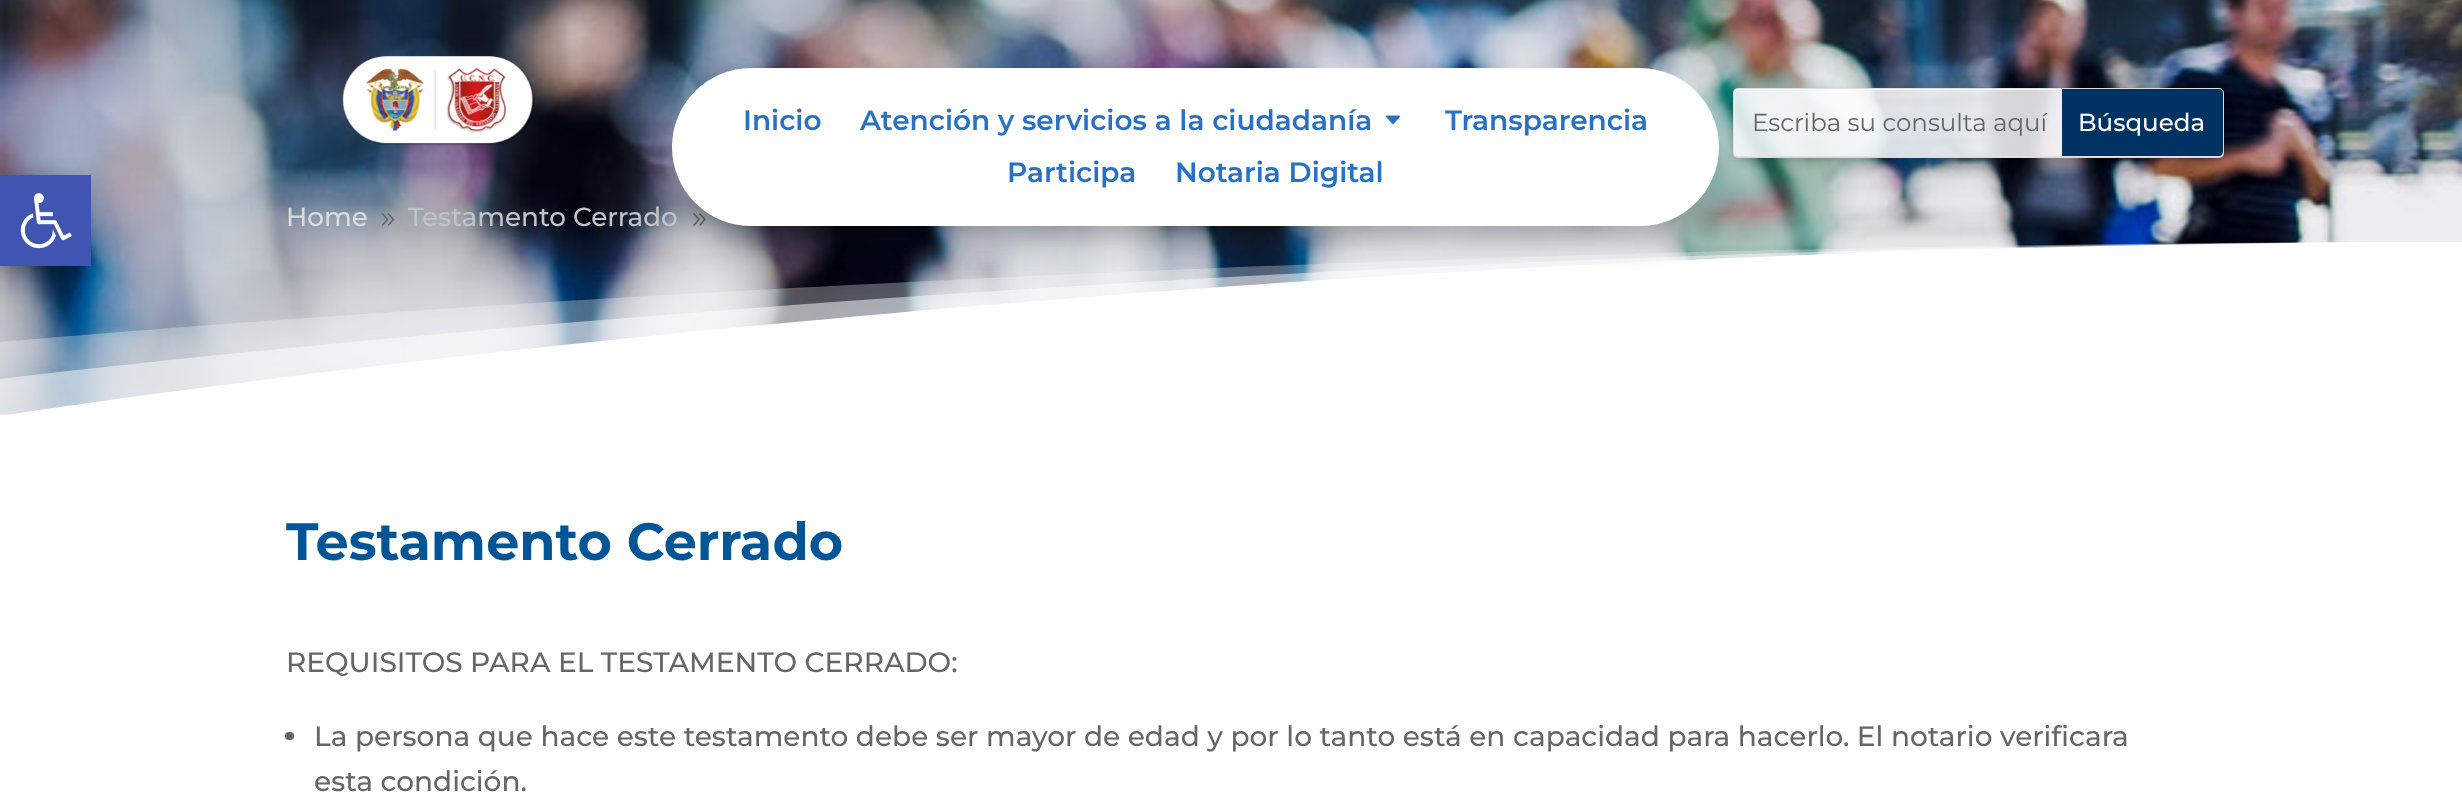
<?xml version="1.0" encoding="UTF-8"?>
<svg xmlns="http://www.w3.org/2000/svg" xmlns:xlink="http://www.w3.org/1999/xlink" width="2462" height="812">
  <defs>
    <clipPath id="clip1"><path d="M 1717 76 h 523 v 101 h -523 z m 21 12 h 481 c 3 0 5 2 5 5 v 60 c 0 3 -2 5 -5 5 h -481 c -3 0 -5 -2 -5 -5 v -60 c 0 -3 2 -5 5 -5 z" clip-rule="evenodd" /></clipPath>
  </defs>
  <rect width="100%" height="100%" fill="#ffffff" />
  <image x="0" y="0" width="2462" height="415" xlink:href="image4.png" />
  <path d="M 0 416 v -74 c 0 0 1102 -100 2462 -100 v 174 z" fill="#ffffff" fill-opacity="0.3" />
  <path d="M 0 416 v -37 c 0 0 1102 -137 2462 -137 v 174 z" fill="#ffffff" fill-opacity="0.5" />
  <path d="M 0 416 c 0 0 1102 -174 2462 -174 v 174 z" fill="#ffffff" />
  <rect y="175" width="91" height="91" fill="#000000" fill-opacity="0.1" filter="blur(9px)" />
  <rect y="175" width="91" height="91" fill="#4054b2" />
  <image x="20" y="193" width="52" height="56" xlink:href="image1.png" />
  <image x="342" y="56" width="193" height="90" xlink:href="image2.png" />
  <g clip-path="url(#clip1)">
    <rect x="1736" y="95" width="485" height="63" rx="2" fill="#000000" fill-opacity="0.3" filter="blur(6px)" />
  </g>
  <rect x="1734" y="89" width="489" height="68" rx="4" fill="none" stroke="#dddddd" stroke-width="2" />
  <rect x="1734" y="89" width="489" height="67" rx="4" fill="#ffffff" fill-opacity="0.84" />
  <image x="693" y="213" width="13" height="13" xlink:href="image6.png" />
  <rect x="683" y="100" width="1025" height="136" rx="68" fill="#000000" fill-opacity="0.3" filter="blur(16px)" />
  <path d="M 2062 89 h 157 c 2 0 4 2 4 4 v 59 c 0 2 -2 4 -4 4 h -157 z" fill="#003363" />
  <image x="381" y="213" width="14" height="13" xlink:href="image5.png" />
  <rect x="285" y="732" width="9" height="8" rx="4" fill="#666666" />
  <text x="1752" y="131" style="font-family: 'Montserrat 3'; font-size: 24.5px; font-weight: 100; fill: #666666">Escriba su consulta aquí</text>
  <text x="2078" y="131" style="font-family: 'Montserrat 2'; font-size: 24.5px; font-weight: 100; fill: #ffffff">Búsqueda</text>
  <text x="286" y="226" style="font-family: 'Montserrat 2'; font-size: 26.25px; font-weight: 100; fill: #d8dce1">Home</text>
  <text x="408" y="226" style="font-family: 'Montserrat 2'; font-size: 26.25px; font-weight: 100; fill: #c1c3c8">Testamento Cerrado</text>
  <rect x="672" y="68" width="1047" height="158" rx="79" fill="#ffffff" />
  <text x="1175" y="182" style="font-family: 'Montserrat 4'; font-size: 28px; font-weight: 100; fill: #2971c4">Notaria Digital</text>
  <text x="1007" y="182" style="font-family: 'Montserrat 4'; font-size: 28px; font-weight: 100; fill: #2971c4">Participa</text>
  <text x="1445" y="130" style="font-family: 'Montserrat 4'; font-size: 28px; font-weight: 100; fill: #2971c4">Transparencia</text>
  <image x="1386" y="115" width="14" height="10" xlink:href="image3.png" />
  <text x="860" y="130" style="font-family: 'Montserrat 4'; font-size: 28px; font-weight: 100; fill: #2971c4">Atención y servicios a la ciudadanía</text>
  <text x="743" y="130" style="font-family: 'Montserrat 4'; font-size: 28px; font-weight: 100; fill: #2971c4">Inicio</text>
  <text x="286" y="560" style="font-family: Montserrat; font-size: 52.5px; font-weight: 100; fill: #005596">Testamento Cerrado</text>
  <text x="286" y="672" style="font-family: 'Montserrat 2'; font-size: 28px; font-weight: 100; fill: #666666">REQUISITOS PARA EL TESTAMENTO CERRADO:</text>
  <text x="314" y="746" style="font-family: 'Montserrat 2'; font-size: 28px; font-weight: 100; fill: #666666">La persona que hace este testamento debe ser mayor de edad y por lo tanto está en capacidad para hacerlo. El notario verificara</text>
  <text x="314" y="791" style="font-family: 'Montserrat 2'; font-size: 28px; font-weight: 100; fill: #666666">esta condición.</text>
</svg>
